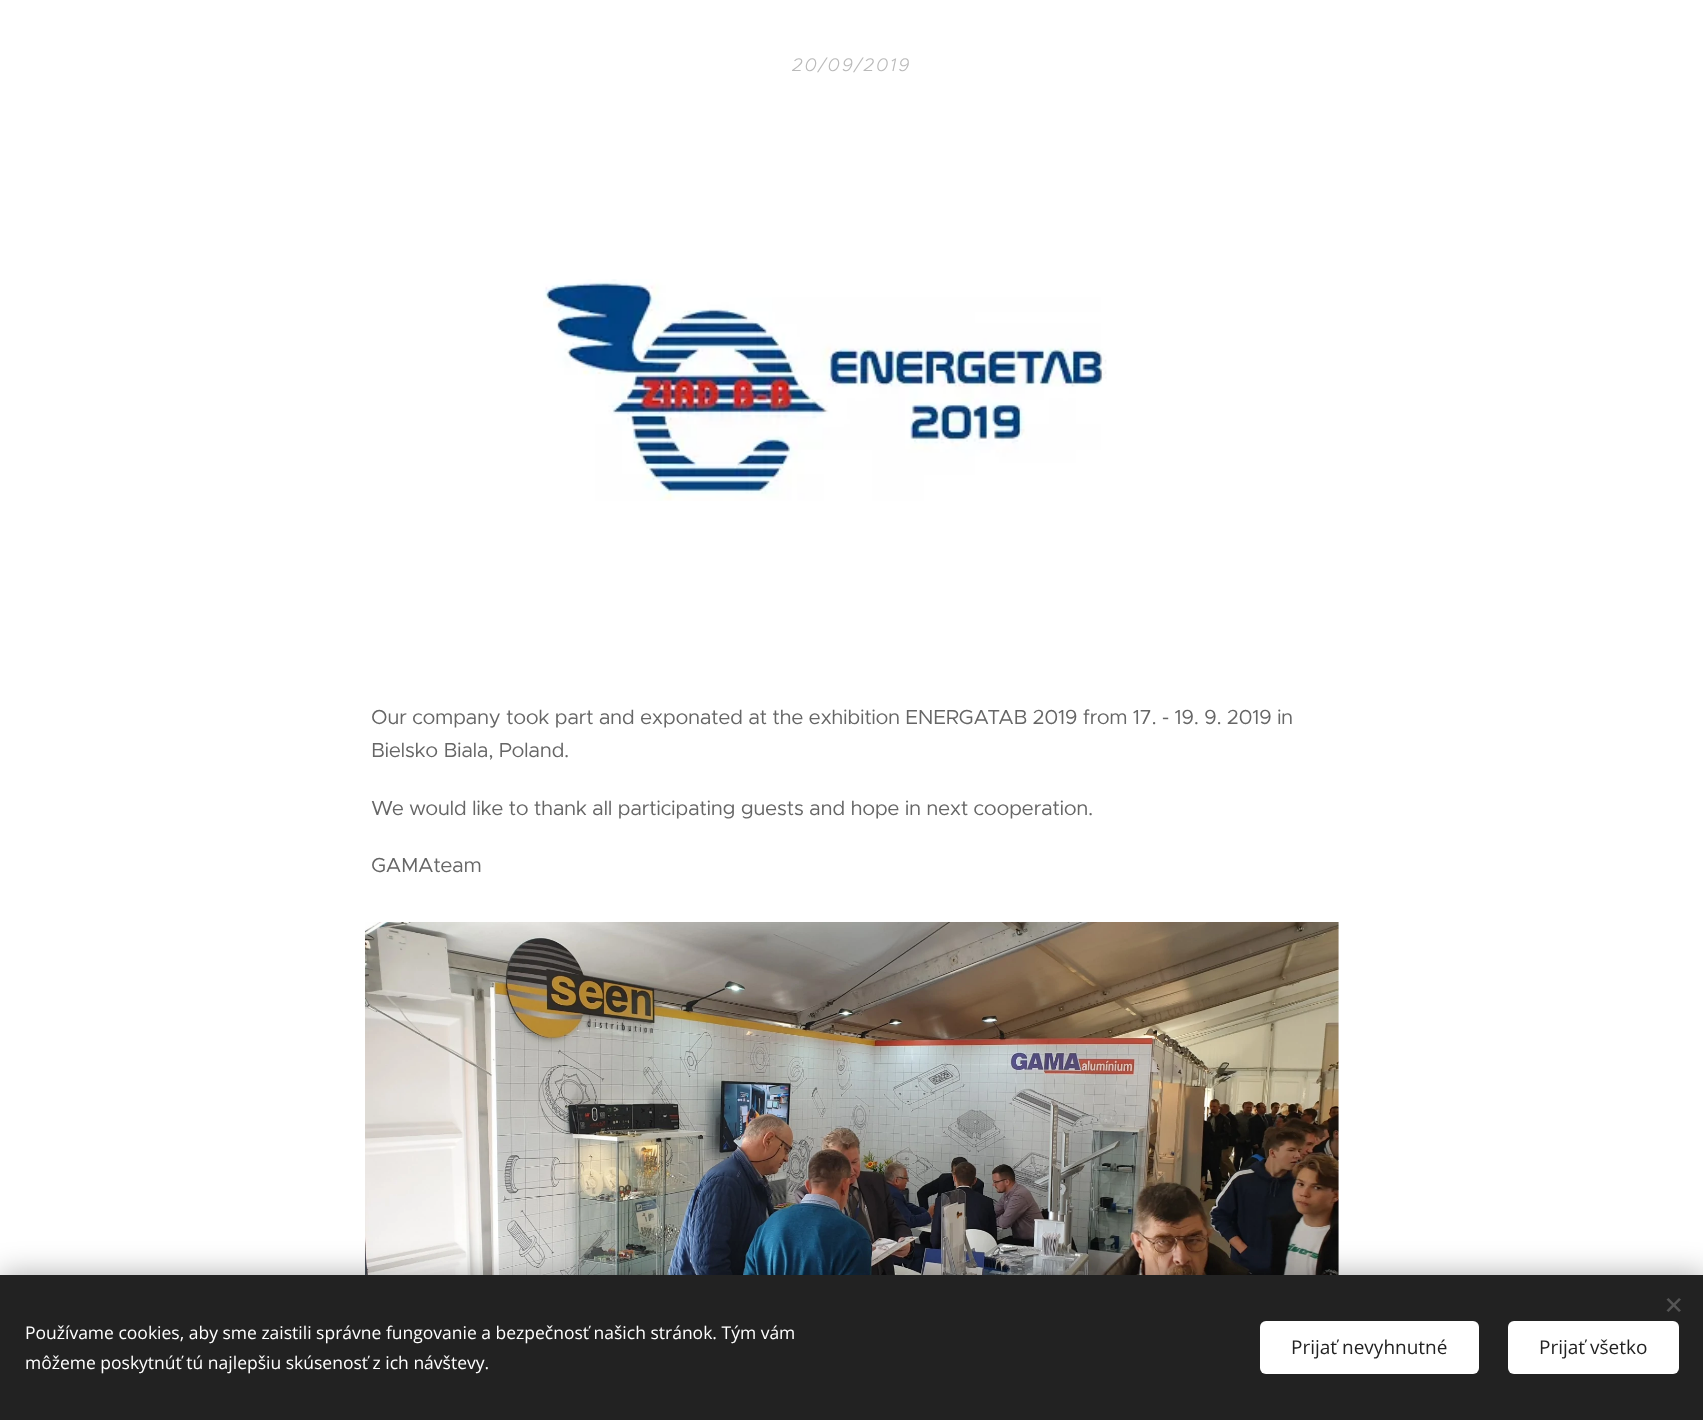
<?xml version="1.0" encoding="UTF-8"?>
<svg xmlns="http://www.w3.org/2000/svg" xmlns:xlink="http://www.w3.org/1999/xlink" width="1703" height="1420">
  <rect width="100%" height="100%" fill="#ffffff" />
  <image x="543" y="279" width="564" height="222" xlink:href="image1.png" />
  <image x="365" y="922" width="974" height="353" xlink:href="image2.png" />
  <rect y="1275" width="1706" height="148" fill="#000000" fill-opacity="0.33" filter="blur(15.5px)" />
  <rect y="1275" width="1703" height="145" fill="#222222" />
  <path d="M 1666.5 1310.5 l 12.5 -12.5 l 2 1.5 l -12.5 12.5 z" fill="#555555" />
  <path d="M 1668.5 1298 l 12.5 12.5 l -2 1.5 l -12.5 -12.5 z" fill="#555555" />
  <rect x="1260" y="1321" width="219" height="53" rx="6" fill="#ffffff" />
  <rect x="1508" y="1321" width="171" height="53" rx="6" fill="#ffffff" />
  <text x="792" y="71" style="font-family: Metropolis; font-size: 18.25px; font-weight: 300; font-style: italic; letter-spacing: 1.75px; fill: #bababa">20/09/2019</text>
  <text x="371" y="724" style="font-family: Metropolis; font-size: 20.5px; letter-spacing: -0.4px; fill: #666666">Our company took part and exponated at the exhibition ENERGATAB 2019 from 17. - 19. 9. 2019 in</text>
  <text x="371" y="757" style="font-family: Metropolis; font-size: 20.5px; letter-spacing: -0.4px; fill: #666666">Bielsko Biala, Poland.</text>
  <text x="371" y="815" style="font-family: Metropolis; font-size: 20.5px; letter-spacing: -0.4px; fill: #666666">We would like to thank all participating guests and hope in next cooperation.</text>
  <text x="371" y="872" style="font-family: Metropolis; font-size: 20.5px; letter-spacing: -0.4px; fill: #666666">GAMAteam</text>
  <text x="25" y="1339" style="font-family: Open Sans; font-size: 17.5px; fill: #ffffff">Používame cookies, aby sme zaistili správne fungovanie a bezpečnosť našich stránok. Tým vám</text>
  <text x="25" y="1369" style="font-family: Open Sans; font-size: 17.5px; fill: #ffffff">môžeme poskytnúť tú najlepšiu skúsenosť z ich návštevy.</text>
  <text x="1291" y="1354" style="font-family: Open Sans; font-size: 19px; fill: #222222">Prijať nevyhnutné</text>
  <text x="1539" y="1354" style="font-family: Open Sans; font-size: 19px; fill: #222222">Prijať všetko</text>
</svg>
